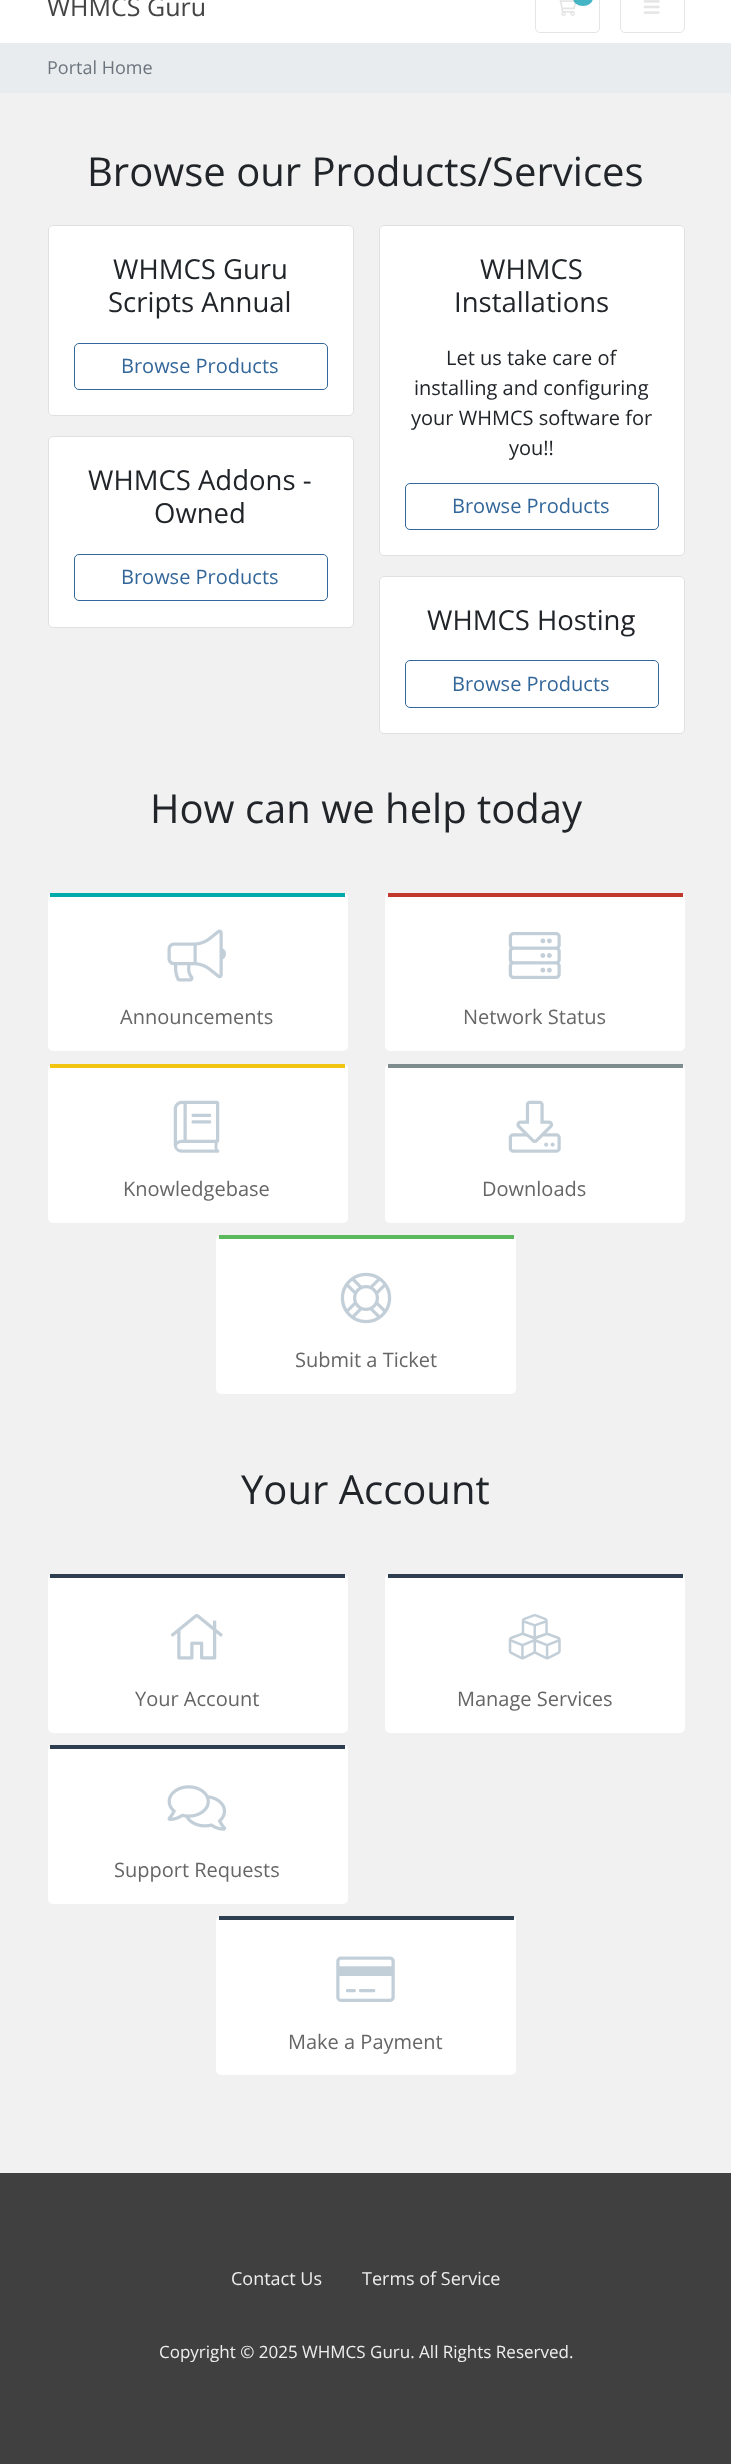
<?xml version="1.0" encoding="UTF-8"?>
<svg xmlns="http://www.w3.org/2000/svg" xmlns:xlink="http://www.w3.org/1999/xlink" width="731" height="2464">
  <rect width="100%" height="100%" fill="#f1f1f1" />
  <rect width="731" height="43" fill="#ffffff" />
  <rect x="535.5" y="-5.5" width="64" height="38" rx="4.5" fill="none" stroke="#e5e5e5" />
  <image x="559" y="0" width="18" height="16" xlink:href="image1.png" />
  <rect x="573" y="-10" width="20" height="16" rx="10" fill="#17a2b8" fill-opacity="0.8" />
  <rect x="620.5" y="-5.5" width="64" height="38" rx="4.5" fill="none" stroke="#e5e5e5" />
  <image x="643" y="0" width="17" height="14" xlink:href="image2.png" />
  <rect y="43" width="731" height="50" fill="#e9ecef" />
  <rect x="48" y="225" width="306" height="191" rx="5" fill="#ffffff" />
  <rect x="48.5" y="225.5" width="305" height="190" rx="4.5" fill="none" stroke="#000000" stroke-opacity="0.12" />
  <rect x="74.5" y="343.5" width="253" height="46" rx="4.5" fill="none" stroke="#336699" />
  <rect x="379" y="225" width="306" height="331" rx="5" fill="#ffffff" />
  <rect x="379.5" y="225.5" width="305" height="330" rx="4.5" fill="none" stroke="#000000" stroke-opacity="0.12" />
  <rect x="405.5" y="483.5" width="253" height="46" rx="4.5" fill="none" stroke="#336699" />
  <rect x="48" y="436" width="306" height="192" rx="5" fill="#ffffff" />
  <rect x="48.5" y="436.5" width="305" height="191" rx="4.5" fill="none" stroke="#000000" stroke-opacity="0.12" />
  <rect x="74.5" y="554.5" width="253" height="46" rx="4.5" fill="none" stroke="#336699" />
  <rect x="379" y="576" width="306" height="158" rx="5" fill="#ffffff" />
  <rect x="379.5" y="576.5" width="305" height="157" rx="4.5" fill="none" stroke="#000000" stroke-opacity="0.12" />
  <rect x="405.5" y="660.5" width="253" height="47" rx="4.5" fill="none" stroke="#336699" />
  <rect x="48" y="893" width="300" height="158" rx="5" fill="#ffffff" />
  <rect x="50" y="893" width="295" height="4" fill="#00aba9" />
  <image x="167" y="929" width="59" height="53" xlink:href="image3.png" />
  <rect x="385" y="893" width="300" height="158" rx="5" fill="#ffffff" />
  <rect x="388" y="893" width="295" height="4" fill="#c0392b" />
  <image x="508" y="932" width="53" height="47" xlink:href="image4.png" />
  <rect x="48" y="1064" width="300" height="159" rx="5" fill="#ffffff" />
  <rect x="50" y="1064" width="295" height="4" fill="#f1c40f" />
  <image x="173" y="1100" width="47" height="53" xlink:href="image5.png" />
  <rect x="385" y="1064" width="300" height="159" rx="5" fill="#ffffff" />
  <rect x="388" y="1064" width="295" height="4" fill="#7f8c8d" />
  <image x="508" y="1100" width="53" height="53" xlink:href="image6.png" />
  <rect x="216" y="1235" width="300" height="159" rx="5" fill="#ffffff" />
  <rect x="219" y="1235" width="295" height="4" fill="#5cb85c" />
  <image x="340" y="1272" width="52" height="52" xlink:href="image7.png" />
  <rect x="48" y="1574" width="300" height="159" rx="5" fill="#ffffff" />
  <rect x="50" y="1574" width="295" height="4" fill="#2c3e50" />
  <image x="170" y="1614" width="53" height="46" xlink:href="image8.png" />
  <rect x="385" y="1574" width="300" height="159" rx="5" fill="#ffffff" />
  <rect x="388" y="1574" width="295" height="4" fill="#2c3e50" />
  <image x="508" y="1614" width="53" height="46" xlink:href="image9.png" />
  <rect x="48" y="1745" width="300" height="159" rx="5" fill="#ffffff" />
  <rect x="50" y="1745" width="295" height="4" fill="#2c3e50" />
  <image x="167" y="1785" width="60" height="46" xlink:href="image10.png" />
  <rect x="216" y="1916" width="300" height="159" rx="5" fill="#ffffff" />
  <rect x="219" y="1916" width="295" height="4" fill="#2c3e50" />
  <image x="336" y="1956" width="59" height="46" xlink:href="image11.png" />
  <rect y="2173" width="731" height="291" fill="#404040" />
  <text x="47" y="16" style="font-family: Open Sans; font-size: 25px; fill: #444444">WHMCS Guru</text>
  <text x="47" y="74" style="font-family: Open Sans; font-size: 18px; fill: #6c757d">Portal Home</text>
  <text x="87" y="186" style="font-family: Open Sans; font-size: 40px; fill: #212529">Browse our Products/Services</text>
  <text x="113" y="279" style="font-family: Open Sans; font-size: 27.5px; fill: #212529">WHMCS Guru</text>
  <text x="108" y="312" style="font-family: Open Sans; font-size: 27.5px; fill: #212529">Scripts Annual</text>
  <text x="121" y="373" style="font-family: Open Sans; font-size: 20px; fill: #336699">Browse Products</text>
  <text x="480" y="279" style="font-family: Open Sans; font-size: 27.5px; fill: #212529">WHMCS</text>
  <text x="454" y="312" style="font-family: Open Sans; font-size: 27.5px; fill: #212529">Installations</text>
  <text x="446" y="365" style="font-family: Open Sans; font-size: 20px; fill: #212529">Let us take care of</text>
  <text x="414" y="395" style="font-family: Open Sans; font-size: 20px; fill: #212529">installing and configuring</text>
  <text x="411" y="425" style="font-family: Open Sans; font-size: 20px; fill: #212529">your WHMCS software for</text>
  <text x="509" y="455" style="font-family: Open Sans; font-size: 20px; fill: #212529">you!!</text>
  <text x="452" y="513" style="font-family: Open Sans; font-size: 20px; fill: #336699">Browse Products</text>
  <text x="88" y="490" style="font-family: Open Sans; font-size: 27.5px; fill: #212529">WHMCS Addons -</text>
  <text x="154" y="523" style="font-family: Open Sans; font-size: 27.5px; fill: #212529">Owned</text>
  <text x="121" y="584" style="font-family: Open Sans; font-size: 20px; fill: #336699">Browse Products</text>
  <text x="427" y="630" style="font-family: Open Sans; font-size: 27.5px; fill: #212529">WHMCS Hosting</text>
  <text x="452" y="691" style="font-family: Open Sans; font-size: 20px; fill: #336699">Browse Products</text>
  <text x="150" y="823" style="font-family: Open Sans; font-size: 40px; fill: #212529">How can we help today</text>
  <text x="120" y="1024" style="font-family: Open Sans; font-size: 20px; fill: #666666">Announcements</text>
  <text x="463" y="1024" style="font-family: Open Sans; font-size: 20px; fill: #666666">Network Status</text>
  <text x="123" y="1196" style="font-family: Open Sans; font-size: 20px; fill: #666666">Knowledgebase</text>
  <text x="482" y="1196" style="font-family: Open Sans; font-size: 20px; fill: #666666">Downloads</text>
  <text x="295" y="1367" style="font-family: Open Sans; font-size: 20px; fill: #666666">Submit a Ticket</text>
  <text x="241" y="1504" style="font-family: Open Sans; font-size: 40px; fill: #212529">Your Account</text>
  <text x="135" y="1706" style="font-family: Open Sans; font-size: 20px; fill: #666666">Your Account</text>
  <text x="457" y="1706" style="font-family: Open Sans; font-size: 20px; fill: #666666">Manage Services</text>
  <text x="114" y="1877" style="font-family: Open Sans; font-size: 20px; fill: #666666">Support Requests</text>
  <text x="288" y="2049" style="font-family: Open Sans; font-size: 20px; fill: #666666">Make a Payment</text>
  <text x="231" y="2285" style="font-family: Open Sans; font-size: 18px; fill: #eeeeee">Contact Us</text>
  <text x="362" y="2285" style="font-family: Open Sans; font-size: 18px; fill: #eeeeee">Terms of Service</text>
  <text x="159" y="2358" style="font-family: Open Sans; font-size: 17px; fill: #eeeeee">Copyright © 2025 WHMCS Guru. All Rights Reserved.</text>
</svg>
